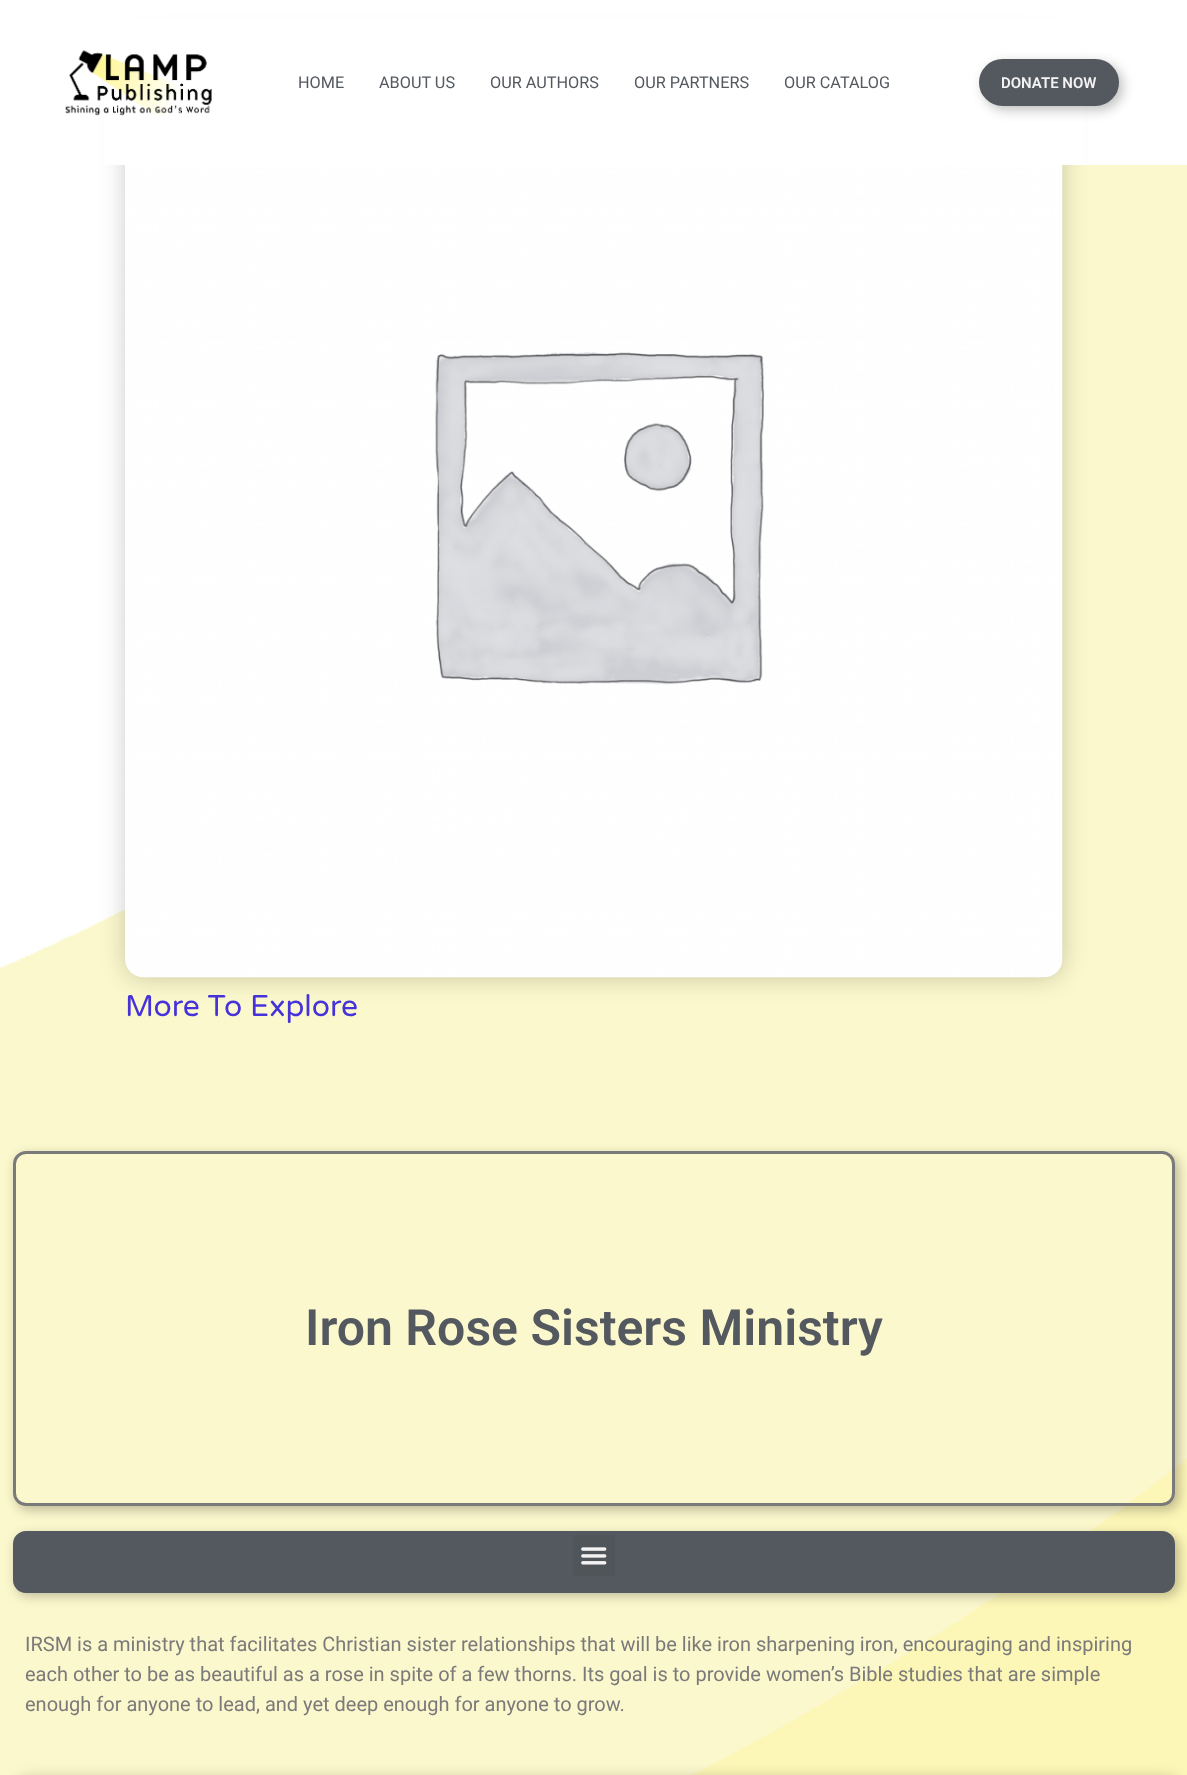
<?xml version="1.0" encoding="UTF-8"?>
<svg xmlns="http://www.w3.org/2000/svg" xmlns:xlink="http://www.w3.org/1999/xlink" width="1187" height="1775">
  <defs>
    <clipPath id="clip1"><path d="M 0 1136 h 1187 v 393 h -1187 z m 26 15 h 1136 c 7 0 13 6 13 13 v 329 c 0 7 -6 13 -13 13 h -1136 c -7 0 -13 -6 -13 -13 v -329 c 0 -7 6 -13 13 -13 z" clip-rule="evenodd" /></clipPath>
  </defs>
  <rect width="100%" height="100%" fill="#ffffff" />
  <image x="0" y="165" width="1187" height="1610" xlink:href="image1.png" />
  <rect x="125" y="40" width="938" height="938" rx="19" fill="#000000" fill-opacity="0.2" filter="blur(12.5px)" />
  <rect x="104" y="19" width="980" height="146" fill="#ffffff" />
  <image x="65" y="50" width="147" height="67" xlink:href="image2.png" />
  <rect x="983" y="63" width="140" height="47" rx="23.5" fill="#000000" fill-opacity="0.25" filter="blur(6px)" />
  <rect x="980.5" y="60.5" width="137" height="44" rx="22" fill="#54595f" stroke="#54595f" stroke-width="3" />
  <image x="125" y="165" width="938" height="813" xlink:href="image3.png" />
  <g clip-path="url(#clip1)">
    <rect x="16" y="1155" width="1163" height="355" rx="13" fill="#000000" fill-opacity="0.25" filter="blur(6px)" />
  </g>
  <rect x="14.5" y="1152.5" width="1159" height="352" rx="11.5" fill="none" stroke="#7a7a7a" stroke-width="3" />
  <rect x="16" y="1535" width="1163" height="61" rx="13" fill="#000000" fill-opacity="0.25" filter="blur(6px)" />
  <rect x="15" y="1533" width="1158" height="58" rx="11" fill="#54595f" stroke="#54595f" stroke-width="4" />
  <rect x="573" y="1535" width="42" height="41" rx="4" fill="#50555a" />
  <image x="581" y="1547" width="26" height="18" xlink:href="image4.png" />
  <rect x="16" y="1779" width="1163" height="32" rx="13" fill="#000000" fill-opacity="0.25" filter="blur(7.5px)" />
  <text x="298" y="88" style="font-family: Roboto; font-size: 16.25px; fill: #54595f">HOME</text>
  <text x="379" y="88" style="font-family: Roboto; font-size: 16.25px; fill: #54595f">ABOUT US</text>
  <text x="490" y="88" style="font-family: Roboto; font-size: 16.25px; fill: #54595f">OUR AUTHORS</text>
  <text x="634" y="88" style="font-family: Roboto; font-size: 16.25px; fill: #54595f">OUR PARTNERS</text>
  <text x="784" y="88" style="font-family: Roboto; font-size: 16.25px; fill: #54595f">OUR CATALOG</text>
  <text x="1001" y="88" style="font-family: Roboto; font-size: 15px; font-weight: 600; fill: #f3f3f3">DONATE NOW</text>
  <text x="125" y="1016" style="font-family: Varela Round; font-size: 30px; fill: #4632da">More To Explore</text>
  <text x="305" y="1345" style="font-family: Roboto; font-size: 50px; font-weight: 600; fill: #54595f">Iron Rose Sisters Ministry</text>
  <text x="25" y="1651" style="font-family: Roboto; font-size: 20px; fill: #7a7a7a">IRSM is a ministry that facilitates Christian sister relationships that will be like iron sharpening iron, encouraging and inspiring</text>
  <text x="25" y="1681" style="font-family: Roboto; font-size: 20px; fill: #7a7a7a">each other to be as beautiful as a rose in spite of a few thorns. Its goal is to provide women’s Bible studies that are simple</text>
  <text x="25" y="1711" style="font-family: Roboto; font-size: 20px; fill: #7a7a7a">enough for anyone to lead, and yet deep enough for anyone to grow.</text>
</svg>
